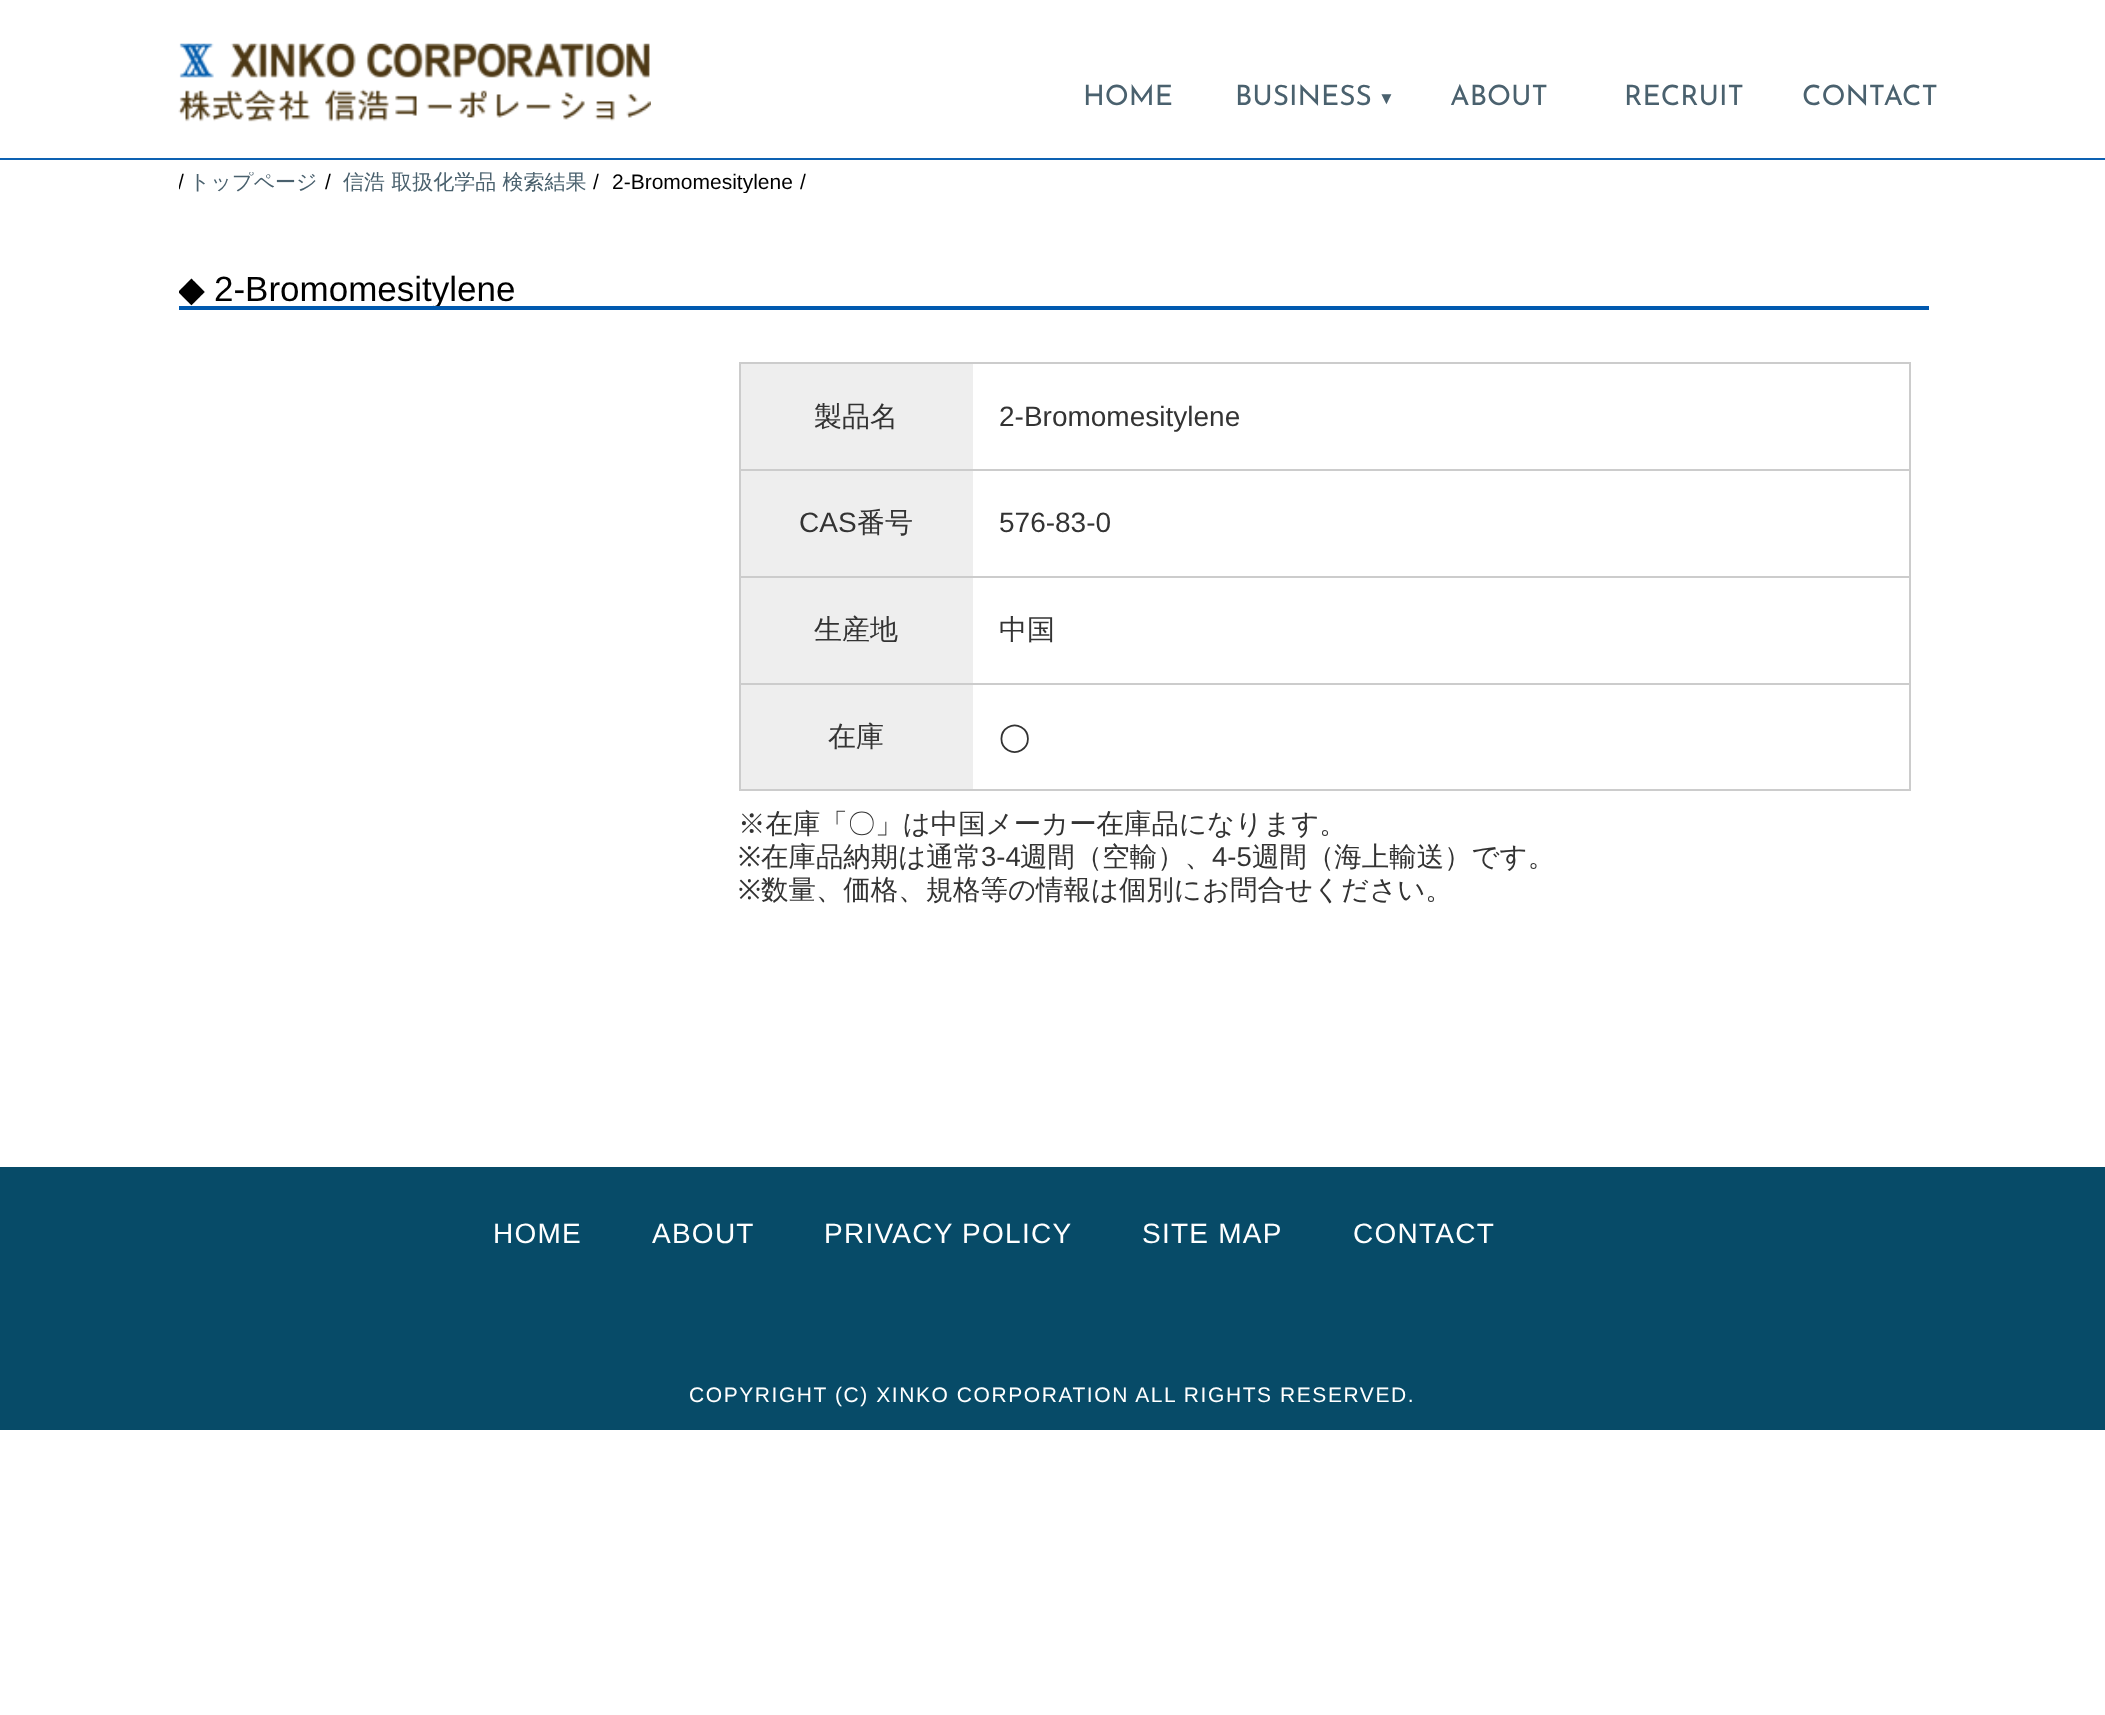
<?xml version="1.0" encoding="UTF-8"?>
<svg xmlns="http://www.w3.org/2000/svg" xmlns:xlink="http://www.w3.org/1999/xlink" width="2105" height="1715">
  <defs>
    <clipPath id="clip1"><rect x="179" y="172" width="1750" height="21" /></clipPath>
    <clipPath id="clip2"><rect x="179" y="193" width="1750" height="113" /></clipPath>
  </defs>
  <rect width="100%" height="100%" fill="#ffffff" />
  <image x="178" y="43" width="473" height="79" xlink:href="image1.png" />
  <rect y="158" width="2105" height="2" fill="#0d61b2" />
  <rect x="179" y="306" width="1750" height="4" fill="#0059af" />
  <rect x="739" y="362" width="1172" height="2" fill="#cccccc" />
  <rect x="1909" y="362" width="2" height="429" fill="#cccccc" />
  <rect x="739" y="789" width="1172" height="2" fill="#cccccc" />
  <rect x="739" y="362" width="2" height="429" fill="#cccccc" />
  <rect x="741" y="364" width="232" height="105" fill="#eeeeee" />
  <rect x="739" y="469" width="1172" height="2" fill="#cccccc" />
  <rect x="741" y="471" width="232" height="105" fill="#eeeeee" />
  <rect x="739" y="576" width="1172" height="2" fill="#cccccc" />
  <rect x="741" y="578" width="232" height="105" fill="#eeeeee" />
  <rect x="739" y="683" width="1172" height="2" fill="#cccccc" />
  <rect x="741" y="685" width="232" height="104" fill="#eeeeee" />
  <rect y="1167" width="2105" height="263" fill="#074b68" />
  <text x="1083" y="105" style="font-family: Josefin Sans; font-size: 28px; font-weight: 100; fill: #4a616e">HOME</text>
  <text x="1235" y="105" style="font-family: Josefin Sans; font-size: 28px; font-weight: 100; fill: #4a616e">BUSINESS</text>
  <text x="1378" y="104" style="font-family: Liberation Sans; font-size: 17px; fill: #4a616e">▼</text>
  <text x="1450" y="105" style="font-family: Josefin Sans; font-size: 28px; font-weight: 100; fill: #4a616e">ABOUT</text>
  <text x="1624" y="105" style="font-family: Josefin Sans; font-size: 28px; font-weight: 100; fill: #4a616e">RECRUIT</text>
  <text x="1802" y="105" style="font-family: Josefin Sans; font-size: 28px; font-weight: 100; fill: #4a616e">CONTACT</text>
  <g clip-path="url(#clip1)">
    <text x="178" y="189" style="font-family: Liberation Sans; font-size: 21px; fill: #000000">/</text>
    <text x="189" y="189" style="font-family: WenQuanYi Zen Hei; font-size: 21px; font-weight: 500; fill: #4a616e">トップページ</text>
  </g>
  <text x="325" y="189" style="font-family: Liberation Sans; font-size: 21px; fill: #000000">/</text>
  <g clip-path="url(#clip1)">
    <text x="343" y="189" style="font-family: WenQuanYi Zen Hei; font-size: 21px; font-weight: 500; fill: #4a616e">信浩 取扱化学品 検索結果</text>
  </g>
  <text x="593" y="189" style="font-family: Liberation Sans; font-size: 21px; fill: #000000">/</text>
  <g clip-path="url(#clip1)">
    <text x="612" y="189" style="font-family: Liberation Sans; font-size: 21px; fill: #000000">2-Bromomesitylene</text>
  </g>
  <text x="800" y="189" style="font-family: Liberation Sans; font-size: 21px; fill: #000000">/</text>
  <g clip-path="url(#clip2)">
    <text x="178" y="301" style="font-family: DejaVu Sans; font-size: 35px; fill: #000000">◆</text>
    <text x="214" y="301" style="font-family: Liberation Sans; font-size: 35px; fill: #000000">2-Bromomesitylene</text>
  </g>
  <text x="814" y="426" style="font-family: WenQuanYi Zen Hei; font-size: 28px; font-weight: 500; fill: #333333">製品名</text>
  <text x="999" y="426" style="font-family: Liberation Sans; font-size: 28px; fill: #333333">2-Bromomesitylene</text>
  <text x="799" y="532" style="font-family: Liberation Sans; font-size: 28px; fill: #333333">CAS</text>
  <text x="857" y="532" style="font-family: WenQuanYi Zen Hei; font-size: 28px; font-weight: 500; fill: #333333">番号</text>
  <text x="999" y="532" style="font-family: Liberation Sans; font-size: 28px; fill: #333333">576-83-0</text>
  <text x="814" y="639" style="font-family: WenQuanYi Zen Hei; font-size: 28px; font-weight: 500; fill: #333333">生産地</text>
  <text x="999" y="639" style="font-family: WenQuanYi Zen Hei; font-size: 28px; font-weight: 500; fill: #333333">中国</text>
  <text x="828" y="746" style="font-family: WenQuanYi Zen Hei; font-size: 28px; font-weight: 500; fill: #333333">在庫</text>
  <text x="999" y="746" style="font-family: DejaVu Sans; font-size: 28px; fill: #333333">◯</text>
  <text x="738" y="833" style="font-family: WenQuanYi Zen Hei; font-size: 27.45px; font-weight: 500; fill: #333333">※在庫「〇」は中国メーカー在庫品になります。</text>
  <text x="738" y="866" style="font-family: Noto Sans; font-size: 27.45px; fill: #333333">※</text>
  <text x="761" y="866" style="font-family: WenQuanYi Zen Hei; font-size: 27.45px; font-weight: 500; fill: #333333">在庫品納期は通常</text>
  <text x="981" y="866" style="font-family: Liberation Sans; font-size: 27.45px; fill: #333333">3-4</text>
  <text x="1020" y="866" style="font-family: WenQuanYi Zen Hei; font-size: 27.45px; font-weight: 500; fill: #333333">週間（空輸）、</text>
  <text x="1212" y="866" style="font-family: Liberation Sans; font-size: 27.45px; fill: #333333">4-5</text>
  <text x="1252" y="866" style="font-family: WenQuanYi Zen Hei; font-size: 27.45px; font-weight: 500; fill: #333333">週間（海上輸送）です。</text>
  <text x="738" y="899" style="font-family: Noto Sans; font-size: 27.45px; fill: #333333">※</text>
  <text x="761" y="899" style="font-family: WenQuanYi Zen Hei; font-size: 27.45px; font-weight: 500; fill: #333333">数量、価格、規格等の情報は個別にお問合せください。</text>
  <text x="493" y="1243" style="font-family: Liberation Sans; font-size: 28px; letter-spacing: 1.25px; fill: #ffffff">HOME</text>
  <text x="652" y="1243" style="font-family: Liberation Sans; font-size: 28px; letter-spacing: 1.25px; fill: #ffffff">ABOUT</text>
  <text x="824" y="1243" style="font-family: Liberation Sans; font-size: 28px; letter-spacing: 1.25px; fill: #ffffff">PRIVACY POLICY</text>
  <text x="1142" y="1243" style="font-family: Liberation Sans; font-size: 28px; letter-spacing: 1.25px; fill: #ffffff">SITE MAP</text>
  <text x="1353" y="1243" style="font-family: Liberation Sans; font-size: 28px; letter-spacing: 1.25px; fill: #ffffff">CONTACT</text>
  <text x="689" y="1402" style="font-family: Liberation Sans; font-size: 21px; letter-spacing: 1.57px; fill: #ffffff">COPYRIGHT (C) XINKO CORPORATION ALL RIGHTS RESERVED.</text>
</svg>
